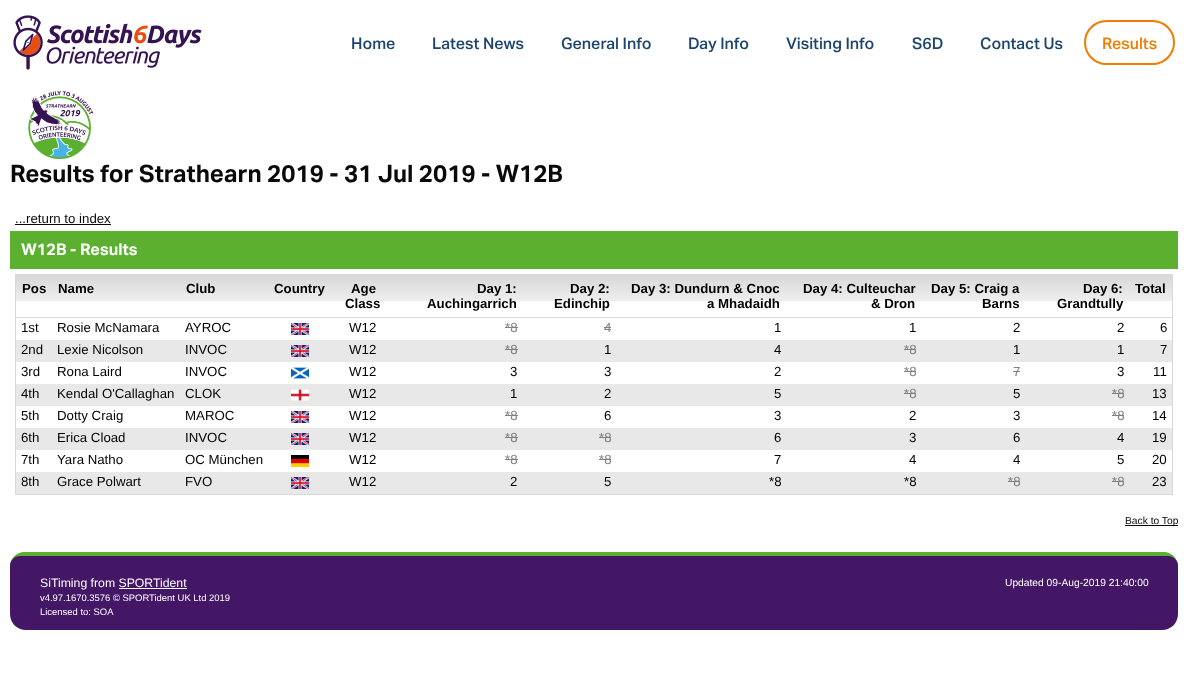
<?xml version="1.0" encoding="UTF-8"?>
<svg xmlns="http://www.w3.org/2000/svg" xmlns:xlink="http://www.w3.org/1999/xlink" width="1188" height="689">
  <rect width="100%" height="100%" fill="#ffffff" />
  <image x="13" y="15" width="189" height="55" xlink:href="image1.png" />
  <rect x="1085" y="21" width="89" height="43" rx="21.5" fill="none" stroke="#ef7d00" stroke-width="2" />
  <image x="28" y="91" width="66" height="69" xlink:href="image2.png" />
  <rect x="15" y="224" width="96" height="1" fill="#0a0a0a" />
  <rect x="10" y="231" width="1168" height="38" fill="#5bb030" />
  <rect x="15" y="274" width="1158" height="1" fill="#d9d9d9" />
  <rect x="1172" y="274" width="1" height="221" fill="#d9d9d9" />
  <rect x="15" y="494" width="1158" height="1" fill="#d9d9d9" />
  <rect x="15" y="274" width="1" height="221" fill="#d9d9d9" />
  <image x="16" y="275" width="36" height="42" xlink:href="image3.png" />
  <image x="52" y="275" width="128" height="42" xlink:href="image4.png" />
  <image x="180" y="275" width="88" height="42" xlink:href="image5.png" />
  <image x="268" y="275" width="63" height="42" xlink:href="image6.png" />
  <image x="331" y="275" width="64" height="42" xlink:href="image7.png" />
  <image x="395" y="275" width="128" height="42" xlink:href="image4.png" />
  <image x="523" y="275" width="93" height="42" xlink:href="image8.png" />
  <image x="616" y="275" width="170" height="42" xlink:href="image9.png" />
  <image x="786" y="275" width="135" height="42" xlink:href="image10.png" />
  <image x="921" y="275" width="104" height="42" xlink:href="image11.png" />
  <image x="1025" y="275" width="104" height="42" xlink:href="image11.png" />
  <image x="1129" y="275" width="43" height="42" xlink:href="image12.png" />
  <rect x="15" y="317" width="1158" height="1" fill="#d9d9d9" />
  <image x="291" y="323" width="18" height="12" xlink:href="image13.png" />
  <rect x="505" y="327" width="13" height="1" fill="#808080" />
  <rect x="604" y="327" width="7" height="1" fill="#808080" />
  <rect x="16" y="340" width="1156" height="22" fill="#e8e8e8" />
  <image x="291" y="345" width="18" height="12" xlink:href="image13.png" />
  <rect x="505" y="349" width="13" height="1" fill="#808080" />
  <rect x="904" y="349" width="12" height="1" fill="#808080" />
  <image x="291" y="367" width="18" height="12" xlink:href="image14.png" />
  <rect x="904" y="371" width="12" height="1" fill="#808080" />
  <rect x="1013" y="371" width="7" height="1" fill="#808080" />
  <rect x="16" y="384" width="1156" height="22" fill="#e8e8e8" />
  <image x="291" y="389" width="18" height="12" xlink:href="image15.png" />
  <rect x="904" y="393" width="12" height="1" fill="#808080" />
  <rect x="1112" y="393" width="12" height="1" fill="#808080" />
  <image x="291" y="411" width="18" height="12" xlink:href="image13.png" />
  <rect x="505" y="415" width="13" height="1" fill="#808080" />
  <rect x="1112" y="415" width="12" height="1" fill="#808080" />
  <rect x="16" y="428" width="1156" height="22" fill="#e8e8e8" />
  <image x="291" y="433" width="18" height="12" xlink:href="image13.png" />
  <rect x="505" y="437" width="13" height="1" fill="#808080" />
  <rect x="599" y="437" width="12" height="1" fill="#808080" />
  <image x="291" y="455" width="18" height="12" xlink:href="image16.png" />
  <rect x="505" y="459" width="13" height="1" fill="#808080" />
  <rect x="599" y="459" width="12" height="1" fill="#808080" />
  <rect x="16" y="472" width="1156" height="22" fill="#e8e8e8" />
  <image x="291" y="477" width="18" height="12" xlink:href="image13.png" />
  <rect x="1008" y="481" width="12" height="1" fill="#808080" />
  <rect x="1112" y="481" width="12" height="1" fill="#808080" />
  <rect x="1125" y="525" width="53" height="1" fill="#0a0a0a" />
  <path d="M 24 552 h 1140 c 7.5 0 14 6.5 14 14 h -1168 c 0 -7.5 6.5 -14 14 -14 z" fill="#5bb030" />
  <path d="M 20 556 h 1148 c 5.5 0 10 4.5 10 10 h -1168 c 0 -5.5 4.5 -10 10 -10 z" fill="#431766" />
  <path d="M 10 566 h 1168 v 48 c 0 9 -7 16 -16 16 h -1136 c -9 0 -16 -7 -16 -16 z" fill="#431766" />
  <rect x="119" y="588" width="68" height="1" fill="#ffffff" />
  <text x="351" y="49" style="font-family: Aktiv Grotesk; font-size: 16px; font-weight: 500; fill: #1d456c">Home</text>
  <text x="432" y="49" style="font-family: Aktiv Grotesk; font-size: 16px; font-weight: 500; fill: #1d456c">Latest News</text>
  <text x="561" y="49" style="font-family: Aktiv Grotesk; font-size: 16px; font-weight: 500; fill: #1d456c">General Info</text>
  <text x="688" y="49" style="font-family: Aktiv Grotesk; font-size: 16px; font-weight: 500; fill: #1d456c">Day Info</text>
  <text x="786" y="49" style="font-family: Aktiv Grotesk; font-size: 16px; font-weight: 500; fill: #1d456c">Visiting Info</text>
  <text x="912" y="49" style="font-family: Aktiv Grotesk; font-size: 16px; font-weight: 500; fill: #1d456c">S6D</text>
  <text x="980" y="49" style="font-family: Aktiv Grotesk; font-size: 16px; font-weight: 500; fill: #1d456c">Contact Us</text>
  <text x="1102" y="49" style="font-family: Aktiv Grotesk; font-size: 16px; font-weight: 500; fill: #ef7d00">Results</text>
  <text x="10" y="182" style="font-family: Aktiv Grotesk; font-size: 24px; font-weight: bold; fill: #0a0a0a">Results for Strathearn 2019 - 31 Jul 2019 - W12B</text>
  <text x="15" y="223" style="font-family: Liberation Sans; font-size: 13.25px; fill: #0a0a0a">...return to index</text>
  <text x="21" y="255" style="font-family: Aktiv Grotesk; font-size: 16.25px; font-weight: bold; fill: #ffffff">W12B - Results</text>
  <text x="22" y="293" style="font-family: Liberation Sans; font-size: 13.25px; font-weight: bold; fill: #000000">Pos</text>
  <text x="58" y="293" style="font-family: Liberation Sans; font-size: 13.25px; font-weight: bold; fill: #000000">Name</text>
  <text x="186" y="293" style="font-family: Liberation Sans; font-size: 13.25px; font-weight: bold; fill: #000000">Club</text>
  <text x="274" y="293" style="font-family: Liberation Sans; font-size: 13.25px; font-weight: bold; fill: #000000">Country</text>
  <text x="351" y="293" style="font-family: Liberation Sans; font-size: 13.25px; font-weight: bold; fill: #000000">Age</text>
  <text x="345" y="308" style="font-family: Liberation Sans; font-size: 13.25px; font-weight: bold; fill: #000000">Class</text>
  <text x="477" y="293" style="font-family: Liberation Sans; font-size: 13.25px; font-weight: bold; fill: #000000">Day 1:</text>
  <text x="427" y="308" style="font-family: Liberation Sans; font-size: 13.25px; font-weight: bold; fill: #000000">Auchingarrich</text>
  <text x="570" y="293" style="font-family: Liberation Sans; font-size: 13.25px; font-weight: bold; fill: #000000">Day 2:</text>
  <text x="554" y="308" style="font-family: Liberation Sans; font-size: 13.25px; font-weight: bold; fill: #000000">Edinchip</text>
  <text x="631" y="293" style="font-family: Liberation Sans; font-size: 13.25px; font-weight: bold; fill: #000000">Day 3: Dundurn &amp; Cnoc</text>
  <text x="707" y="308" style="font-family: Liberation Sans; font-size: 13.25px; font-weight: bold; fill: #000000">a Mhadaidh</text>
  <text x="803" y="293" style="font-family: Liberation Sans; font-size: 13.25px; font-weight: bold; fill: #000000">Day 4: Culteuchar</text>
  <text x="871" y="308" style="font-family: Liberation Sans; font-size: 13.25px; font-weight: bold; fill: #000000">&amp; Dron</text>
  <text x="931" y="293" style="font-family: Liberation Sans; font-size: 13.25px; font-weight: bold; fill: #000000">Day 5: Craig a</text>
  <text x="982" y="308" style="font-family: Liberation Sans; font-size: 13.25px; font-weight: bold; fill: #000000">Barns</text>
  <text x="1083" y="293" style="font-family: Liberation Sans; font-size: 13.25px; font-weight: bold; fill: #000000">Day 6:</text>
  <text x="1057" y="308" style="font-family: Liberation Sans; font-size: 13.25px; font-weight: bold; fill: #000000">Grandtully</text>
  <text x="1135" y="293" style="font-family: Liberation Sans; font-size: 13.25px; font-weight: bold; fill: #000000">Total</text>
  <text x="21" y="332" style="font-family: Liberation Sans; font-size: 13.25px; fill: #000000">1st</text>
  <text x="57" y="332" style="font-family: Liberation Sans; font-size: 13.25px; fill: #000000">Rosie McNamara</text>
  <text x="185" y="332" style="font-family: Liberation Sans; font-size: 13.25px; fill: #000000">AYROC</text>
  <text x="349" y="332" style="font-family: Liberation Sans; font-size: 13.25px; fill: #000000">W12</text>
  <text x="505" y="332" style="font-family: Liberation Sans; font-size: 13.25px; fill: #808080">*8</text>
  <text x="604" y="332" style="font-family: Liberation Sans; font-size: 13.25px; fill: #808080">4</text>
  <text x="774" y="332" style="font-family: Liberation Sans; font-size: 13.25px; fill: #000000">1</text>
  <text x="909" y="332" style="font-family: Liberation Sans; font-size: 13.25px; fill: #000000">1</text>
  <text x="1013" y="332" style="font-family: Liberation Sans; font-size: 13.25px; fill: #000000">2</text>
  <text x="1117" y="332" style="font-family: Liberation Sans; font-size: 13.25px; fill: #000000">2</text>
  <text x="1160" y="332" style="font-family: Liberation Sans; font-size: 13.25px; fill: #000000">6</text>
  <text x="21" y="354" style="font-family: Liberation Sans; font-size: 13.25px; fill: #000000">2nd</text>
  <text x="57" y="354" style="font-family: Liberation Sans; font-size: 13.25px; fill: #000000">Lexie Nicolson</text>
  <text x="185" y="354" style="font-family: Liberation Sans; font-size: 13.25px; fill: #000000">INVOC</text>
  <text x="349" y="354" style="font-family: Liberation Sans; font-size: 13.25px; fill: #000000">W12</text>
  <text x="505" y="354" style="font-family: Liberation Sans; font-size: 13.25px; fill: #808080">*8</text>
  <text x="604" y="354" style="font-family: Liberation Sans; font-size: 13.25px; fill: #000000">1</text>
  <text x="774" y="354" style="font-family: Liberation Sans; font-size: 13.25px; fill: #000000">4</text>
  <text x="904" y="354" style="font-family: Liberation Sans; font-size: 13.25px; fill: #808080">*8</text>
  <text x="1013" y="354" style="font-family: Liberation Sans; font-size: 13.25px; fill: #000000">1</text>
  <text x="1117" y="354" style="font-family: Liberation Sans; font-size: 13.25px; fill: #000000">1</text>
  <text x="1160" y="354" style="font-family: Liberation Sans; font-size: 13.25px; fill: #000000">7</text>
  <text x="21" y="376" style="font-family: Liberation Sans; font-size: 13.25px; fill: #000000">3rd</text>
  <text x="57" y="376" style="font-family: Liberation Sans; font-size: 13.25px; fill: #000000">Rona Laird</text>
  <text x="185" y="376" style="font-family: Liberation Sans; font-size: 13.25px; fill: #000000">INVOC</text>
  <text x="349" y="376" style="font-family: Liberation Sans; font-size: 13.25px; fill: #000000">W12</text>
  <text x="510" y="376" style="font-family: Liberation Sans; font-size: 13.25px; fill: #000000">3</text>
  <text x="604" y="376" style="font-family: Liberation Sans; font-size: 13.25px; fill: #000000">3</text>
  <text x="774" y="376" style="font-family: Liberation Sans; font-size: 13.25px; fill: #000000">2</text>
  <text x="904" y="376" style="font-family: Liberation Sans; font-size: 13.25px; fill: #808080">*8</text>
  <text x="1013" y="376" style="font-family: Liberation Sans; font-size: 13.25px; fill: #808080">7</text>
  <text x="1117" y="376" style="font-family: Liberation Sans; font-size: 13.25px; fill: #000000">3</text>
  <text x="1153" y="376" style="font-family: Liberation Sans; font-size: 13.25px; fill: #000000">11</text>
  <text x="21" y="398" style="font-family: Liberation Sans; font-size: 13.25px; fill: #000000">4th</text>
  <text x="57" y="398" style="font-family: Liberation Sans; font-size: 13.25px; fill: #000000">Kendal O'Callaghan</text>
  <text x="185" y="398" style="font-family: Liberation Sans; font-size: 13.25px; fill: #000000">CLOK</text>
  <text x="349" y="398" style="font-family: Liberation Sans; font-size: 13.25px; fill: #000000">W12</text>
  <text x="510" y="398" style="font-family: Liberation Sans; font-size: 13.25px; fill: #000000">1</text>
  <text x="604" y="398" style="font-family: Liberation Sans; font-size: 13.25px; fill: #000000">2</text>
  <text x="774" y="398" style="font-family: Liberation Sans; font-size: 13.25px; fill: #000000">5</text>
  <text x="904" y="398" style="font-family: Liberation Sans; font-size: 13.25px; fill: #808080">*8</text>
  <text x="1013" y="398" style="font-family: Liberation Sans; font-size: 13.25px; fill: #000000">5</text>
  <text x="1112" y="398" style="font-family: Liberation Sans; font-size: 13.25px; fill: #808080">*8</text>
  <text x="1152" y="398" style="font-family: Liberation Sans; font-size: 13.25px; fill: #000000">13</text>
  <text x="21" y="420" style="font-family: Liberation Sans; font-size: 13.25px; fill: #000000">5th</text>
  <text x="57" y="420" style="font-family: Liberation Sans; font-size: 13.25px; fill: #000000">Dotty Craig</text>
  <text x="185" y="420" style="font-family: Liberation Sans; font-size: 13.25px; fill: #000000">MAROC</text>
  <text x="349" y="420" style="font-family: Liberation Sans; font-size: 13.25px; fill: #000000">W12</text>
  <text x="505" y="420" style="font-family: Liberation Sans; font-size: 13.25px; fill: #808080">*8</text>
  <text x="604" y="420" style="font-family: Liberation Sans; font-size: 13.25px; fill: #000000">6</text>
  <text x="774" y="420" style="font-family: Liberation Sans; font-size: 13.25px; fill: #000000">3</text>
  <text x="909" y="420" style="font-family: Liberation Sans; font-size: 13.25px; fill: #000000">2</text>
  <text x="1013" y="420" style="font-family: Liberation Sans; font-size: 13.25px; fill: #000000">3</text>
  <text x="1112" y="420" style="font-family: Liberation Sans; font-size: 13.25px; fill: #808080">*8</text>
  <text x="1152" y="420" style="font-family: Liberation Sans; font-size: 13.25px; fill: #000000">14</text>
  <text x="21" y="442" style="font-family: Liberation Sans; font-size: 13.25px; fill: #000000">6th</text>
  <text x="57" y="442" style="font-family: Liberation Sans; font-size: 13.25px; fill: #000000">Erica Cload</text>
  <text x="185" y="442" style="font-family: Liberation Sans; font-size: 13.25px; fill: #000000">INVOC</text>
  <text x="349" y="442" style="font-family: Liberation Sans; font-size: 13.25px; fill: #000000">W12</text>
  <text x="505" y="442" style="font-family: Liberation Sans; font-size: 13.25px; fill: #808080">*8</text>
  <text x="599" y="442" style="font-family: Liberation Sans; font-size: 13.25px; fill: #808080">*8</text>
  <text x="774" y="442" style="font-family: Liberation Sans; font-size: 13.25px; fill: #000000">6</text>
  <text x="909" y="442" style="font-family: Liberation Sans; font-size: 13.25px; fill: #000000">3</text>
  <text x="1013" y="442" style="font-family: Liberation Sans; font-size: 13.25px; fill: #000000">6</text>
  <text x="1117" y="442" style="font-family: Liberation Sans; font-size: 13.25px; fill: #000000">4</text>
  <text x="1152" y="442" style="font-family: Liberation Sans; font-size: 13.25px; fill: #000000">19</text>
  <text x="21" y="464" style="font-family: Liberation Sans; font-size: 13.25px; fill: #000000">7th</text>
  <text x="57" y="464" style="font-family: Liberation Sans; font-size: 13.25px; fill: #000000">Yara Natho</text>
  <text x="185" y="464" style="font-family: Liberation Sans; font-size: 13.25px; fill: #000000">OC München</text>
  <text x="349" y="464" style="font-family: Liberation Sans; font-size: 13.25px; fill: #000000">W12</text>
  <text x="505" y="464" style="font-family: Liberation Sans; font-size: 13.25px; fill: #808080">*8</text>
  <text x="599" y="464" style="font-family: Liberation Sans; font-size: 13.25px; fill: #808080">*8</text>
  <text x="774" y="464" style="font-family: Liberation Sans; font-size: 13.25px; fill: #000000">7</text>
  <text x="909" y="464" style="font-family: Liberation Sans; font-size: 13.25px; fill: #000000">4</text>
  <text x="1013" y="464" style="font-family: Liberation Sans; font-size: 13.25px; fill: #000000">4</text>
  <text x="1117" y="464" style="font-family: Liberation Sans; font-size: 13.25px; fill: #000000">5</text>
  <text x="1152" y="464" style="font-family: Liberation Sans; font-size: 13.25px; fill: #000000">20</text>
  <text x="21" y="486" style="font-family: Liberation Sans; font-size: 13.25px; fill: #000000">8th</text>
  <text x="57" y="486" style="font-family: Liberation Sans; font-size: 13.25px; fill: #000000">Grace Polwart</text>
  <text x="185" y="486" style="font-family: Liberation Sans; font-size: 13.25px; fill: #000000">FVO</text>
  <text x="349" y="486" style="font-family: Liberation Sans; font-size: 13.25px; fill: #000000">W12</text>
  <text x="510" y="486" style="font-family: Liberation Sans; font-size: 13.25px; fill: #000000">2</text>
  <text x="604" y="486" style="font-family: Liberation Sans; font-size: 13.25px; fill: #000000">5</text>
  <text x="769" y="486" style="font-family: Liberation Sans; font-size: 13.25px; fill: #000000">*8</text>
  <text x="904" y="486" style="font-family: Liberation Sans; font-size: 13.25px; fill: #000000">*8</text>
  <text x="1008" y="486" style="font-family: Liberation Sans; font-size: 13.25px; fill: #808080">*8</text>
  <text x="1112" y="486" style="font-family: Liberation Sans; font-size: 13.25px; fill: #808080">*8</text>
  <text x="1152" y="486" style="font-family: Liberation Sans; font-size: 13.25px; fill: #000000">23</text>
  <text x="1125" y="524" style="font-family: Liberation Sans; font-size: 10.25px; fill: #0a0a0a">Back to Top</text>
  <text x="40" y="587" style="font-family: Liberation Sans; font-size: 12.25px; fill: #ffffff">SiTiming from SPORTident</text>
  <text x="40" y="601" style="font-family: Liberation Sans; font-size: 9.45px; fill: #ffffff">v4.97.1670.3576 © SPORTident UK Ltd 2019</text>
  <text x="40" y="615" style="font-family: Liberation Sans; font-size: 9.45px; fill: #ffffff">Licensed to: SOA</text>
  <text x="1005" y="586" style="font-family: Liberation Sans; font-size: 10.25px; fill: #ffffff">Updated 09-Aug-2019 21:40:00</text>
</svg>
